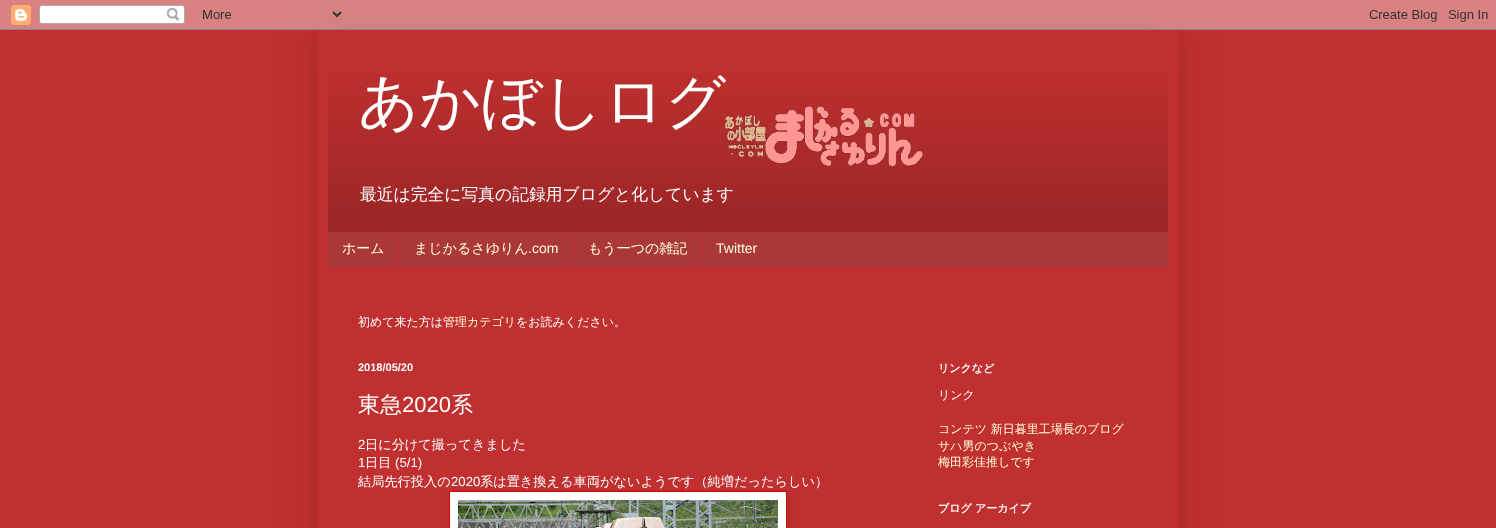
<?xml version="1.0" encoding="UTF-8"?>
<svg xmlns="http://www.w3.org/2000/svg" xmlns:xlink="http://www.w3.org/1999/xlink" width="1496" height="528">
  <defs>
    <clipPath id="clip1"><path d="M 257 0 h 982 v 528 h -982 z m 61 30 h 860 v 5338 h -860 z" clip-rule="evenodd" /></clipPath>
  </defs>
  <rect width="100%" height="100%" fill="#c13030" />
  <g clip-path="url(#clip1)">
    <rect x="318" y="30" width="860" height="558" fill="#000000" fill-opacity="0.15" filter="blur(20px)" />
  </g>
  <image x="0" y="0" width="1496" height="30" xlink:href="image1.png" />
  <image x="328" y="73" width="840" height="159" xlink:href="image2.png" />
  <image x="724" y="106" width="199" height="61" xlink:href="image3.png" />
  <rect x="328" y="232" width="840" height="35" fill="#aa3838" />
  <rect x="328" y="267" width="840" height="1" fill="#b63434" />
  <rect x="399" y="232" width="1" height="35" fill="#c13030" />
  <rect x="573" y="232" width="1" height="35" fill="#c13030" />
  <rect x="701" y="232" width="1" height="33" fill="#c13030" />
  <rect x="908" y="361" width="1" height="167" fill="#b63434" />
  <rect x="450" y="492" width="338" height="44" fill="#000000" fill-opacity="0.1" filter="blur(2.5px)" />
  <rect x="449.5" y="491.5" width="337" height="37" fill="#ffffff" stroke="#d90000" />
  <image x="458" y="500" width="320" height="28" xlink:href="image4.png" />
  <text x="358" y="122" style="font-family: WenQuanYi Zen Hei; font-size: 60px; font-weight: 500; fill: #ffffff">あかぼしログ</text>
  <text x="360" y="200" style="font-family: WenQuanYi Zen Hei; font-size: 16.8px; font-weight: 500; fill: #ffffff">最近は完全に写真の記録用ブログと化しています</text>
  <text x="342" y="253" style="font-family: WenQuanYi Zen Hei; font-size: 14px; font-weight: 500; fill: #ffffda">ホーム</text>
  <text x="414" y="253" style="font-family: WenQuanYi Zen Hei; font-size: 14px; font-weight: 500; fill: #ffffda">まじかるさゆりん</text>
  <text x="528" y="253" style="font-family: Liberation Sans; font-size: 14px; fill: #ffffda">.com</text>
  <text x="588" y="253" style="font-family: WenQuanYi Zen Hei; font-size: 14px; font-weight: 500; fill: #ffffda">もう一つの雑記</text>
  <text x="716" y="253" style="font-family: Liberation Sans; font-size: 14px; fill: #ffffda">Twitter</text>
  <text x="358" y="326" style="font-family: WenQuanYi Zen Hei; font-size: 12px; font-weight: 500; fill: #ffffff">初めて来た方は</text>
  <text x="443" y="326" style="font-family: WenQuanYi Zen Hei; font-size: 12px; font-weight: 500; fill: #ffffda">管理カテゴリ</text>
  <text x="516" y="326" style="font-family: WenQuanYi Zen Hei; font-size: 12px; font-weight: 500; fill: #ffffff">をお読みください。</text>
  <text x="358" y="371" style="font-family: Liberation Sans; font-size: 11px; font-weight: bold; fill: #ffffff">2018/05/20</text>
  <text x="358" y="412" style="font-family: WenQuanYi Zen Hei; font-size: 22px; font-weight: 500; fill: #ffffff">東急</text>
  <text x="402" y="412" style="font-family: Liberation Sans; font-size: 22px; fill: #ffffff">2020</text>
  <text x="451" y="412" style="font-family: WenQuanYi Zen Hei; font-size: 22px; font-weight: 500; fill: #ffffff">系</text>
  <text x="358" y="449" style="font-family: Liberation Sans; font-size: 13.2px; fill: #ffffff">2</text>
  <text x="365" y="449" style="font-family: WenQuanYi Zen Hei; font-size: 13.2px; font-weight: 500; fill: #ffffff">日に分けて撮ってきました</text>
  <text x="358" y="467" style="font-family: Liberation Sans; font-size: 13.2px; fill: #ffffff">1</text>
  <text x="365" y="467" style="font-family: WenQuanYi Zen Hei; font-size: 13.2px; font-weight: 500; fill: #ffffff">日目</text>
  <text x="395" y="467" style="font-family: Liberation Sans; font-size: 13.2px; fill: #ffffff">(5/1)</text>
  <text x="358" y="486" style="font-family: WenQuanYi Zen Hei; font-size: 13.2px; font-weight: 500; fill: #ffffff">結局先行投入の</text>
  <text x="451" y="486" style="font-family: Liberation Sans; font-size: 13.2px; fill: #ffffff">2020</text>
  <text x="480" y="486" style="font-family: WenQuanYi Zen Hei; font-size: 13.2px; font-weight: 500; fill: #ffffff">系は置き換える車両がないようです（純増だったらしい）</text>
  <text x="938" y="372" style="font-family: WenQuanYi Zen Hei; font-size: 11px; font-weight: bold; fill: #ffffff">リンクなど</text>
  <text x="938" y="399" style="font-family: WenQuanYi Zen Hei; font-size: 12px; font-weight: 500; fill: #ffffff">リンク</text>
  <text x="938" y="433" style="font-family: WenQuanYi Zen Hei; font-size: 12px; font-weight: 500; fill: #ffffda">コンテツ 新日暮里工場長のブログ</text>
  <text x="938" y="450" style="font-family: WenQuanYi Zen Hei; font-size: 12px; font-weight: 500; fill: #ffffda">サハ男のつぶやき</text>
  <text x="938" y="466" style="font-family: WenQuanYi Zen Hei; font-size: 12px; font-weight: 500; fill: #ffffda">梅田彩佳推しです</text>
  <text x="938" y="512" style="font-family: WenQuanYi Zen Hei; font-size: 11px; font-weight: bold; fill: #ffffff">ブログ アーカイブ</text>
</svg>
